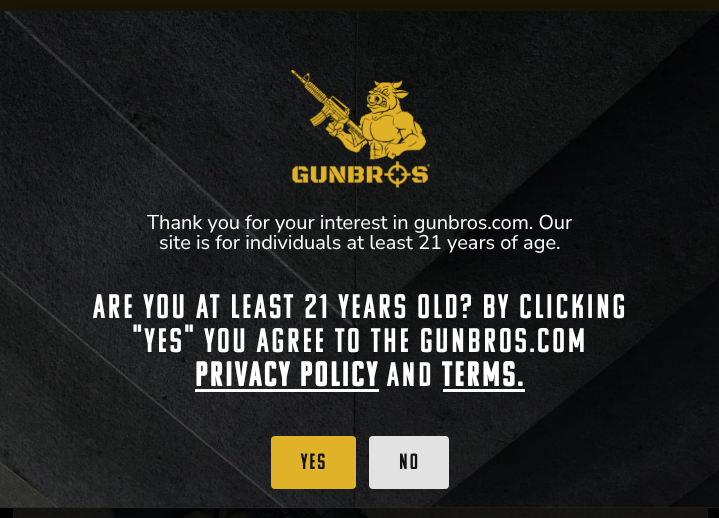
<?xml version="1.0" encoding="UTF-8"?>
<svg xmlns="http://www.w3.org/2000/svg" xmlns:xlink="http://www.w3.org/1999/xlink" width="719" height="518">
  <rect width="100%" height="100%" fill="#ffffff" />
  <image x="0" y="508" width="719" height="10" xlink:href="image1.png" />
  <rect width="719" height="11" fill="#1b1605" />
  <image x="13" y="508" width="695" height="10" xlink:href="image4.png" />
  <rect x="-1" y="18" width="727" height="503" fill="#000000" fill-opacity="0.2" filter="blur(14.5px)" />
  <rect y="507" width="719" height="1" fill="#252525" />
  <image x="0" y="11" width="719" height="497" xlink:href="image2.png" />
  <image x="290" y="70" width="140" height="118" xlink:href="image3.png" />
  <rect x="195" y="389" width="184" height="3" fill="#ffffff" />
  <rect x="443" y="389" width="82" height="3" fill="#ffffff" />
  <rect x="271" y="436" width="85" height="53" rx="4" fill="#e0b227" />
  <rect x="369" y="436" width="80" height="53" rx="4" fill="#e2e2e2" />
  <text x="147" y="229" style="font-family: Nunito Sans; font-size: 20px; fill: #ffffff">Thank you for your interest in gunbros.com. Our</text>
  <text x="159" y="249" style="font-family: Nunito Sans; font-size: 20px; fill: #ffffff">site is for individuals at least 21 years of age.</text>
  <text x="93" y="318" style="font-family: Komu; font-size: 34px; letter-spacing: 2.9px; fill: #ffffff">Are you at least 21 years old? By clicking</text>
  <text x="133" y="352" style="font-family: Komu; font-size: 34px; letter-spacing: 2.9px; fill: #ffffff">"Yes" you agree to the gunbros.com</text>
  <text x="195" y="386" style="font-family: Komu; font-size: 34px; font-weight: bold; letter-spacing: 2.9px; fill: #ffffff">Privacy Policy</text>
  <text x="387" y="386" style="font-family: Komu; font-size: 34px; letter-spacing: 2.9px; fill: #ffffff">and</text>
  <text x="442" y="386" style="font-family: Komu; font-size: 34px; font-weight: bold; letter-spacing: 2.9px; fill: #ffffff">Terms.</text>
  <text x="301" y="469" style="font-family: Komu; font-size: 22px; letter-spacing: 2px; fill: #111111">Yes</text>
  <text x="399" y="469" style="font-family: Komu; font-size: 22px; letter-spacing: 2px; fill: #111111">No</text>
</svg>
